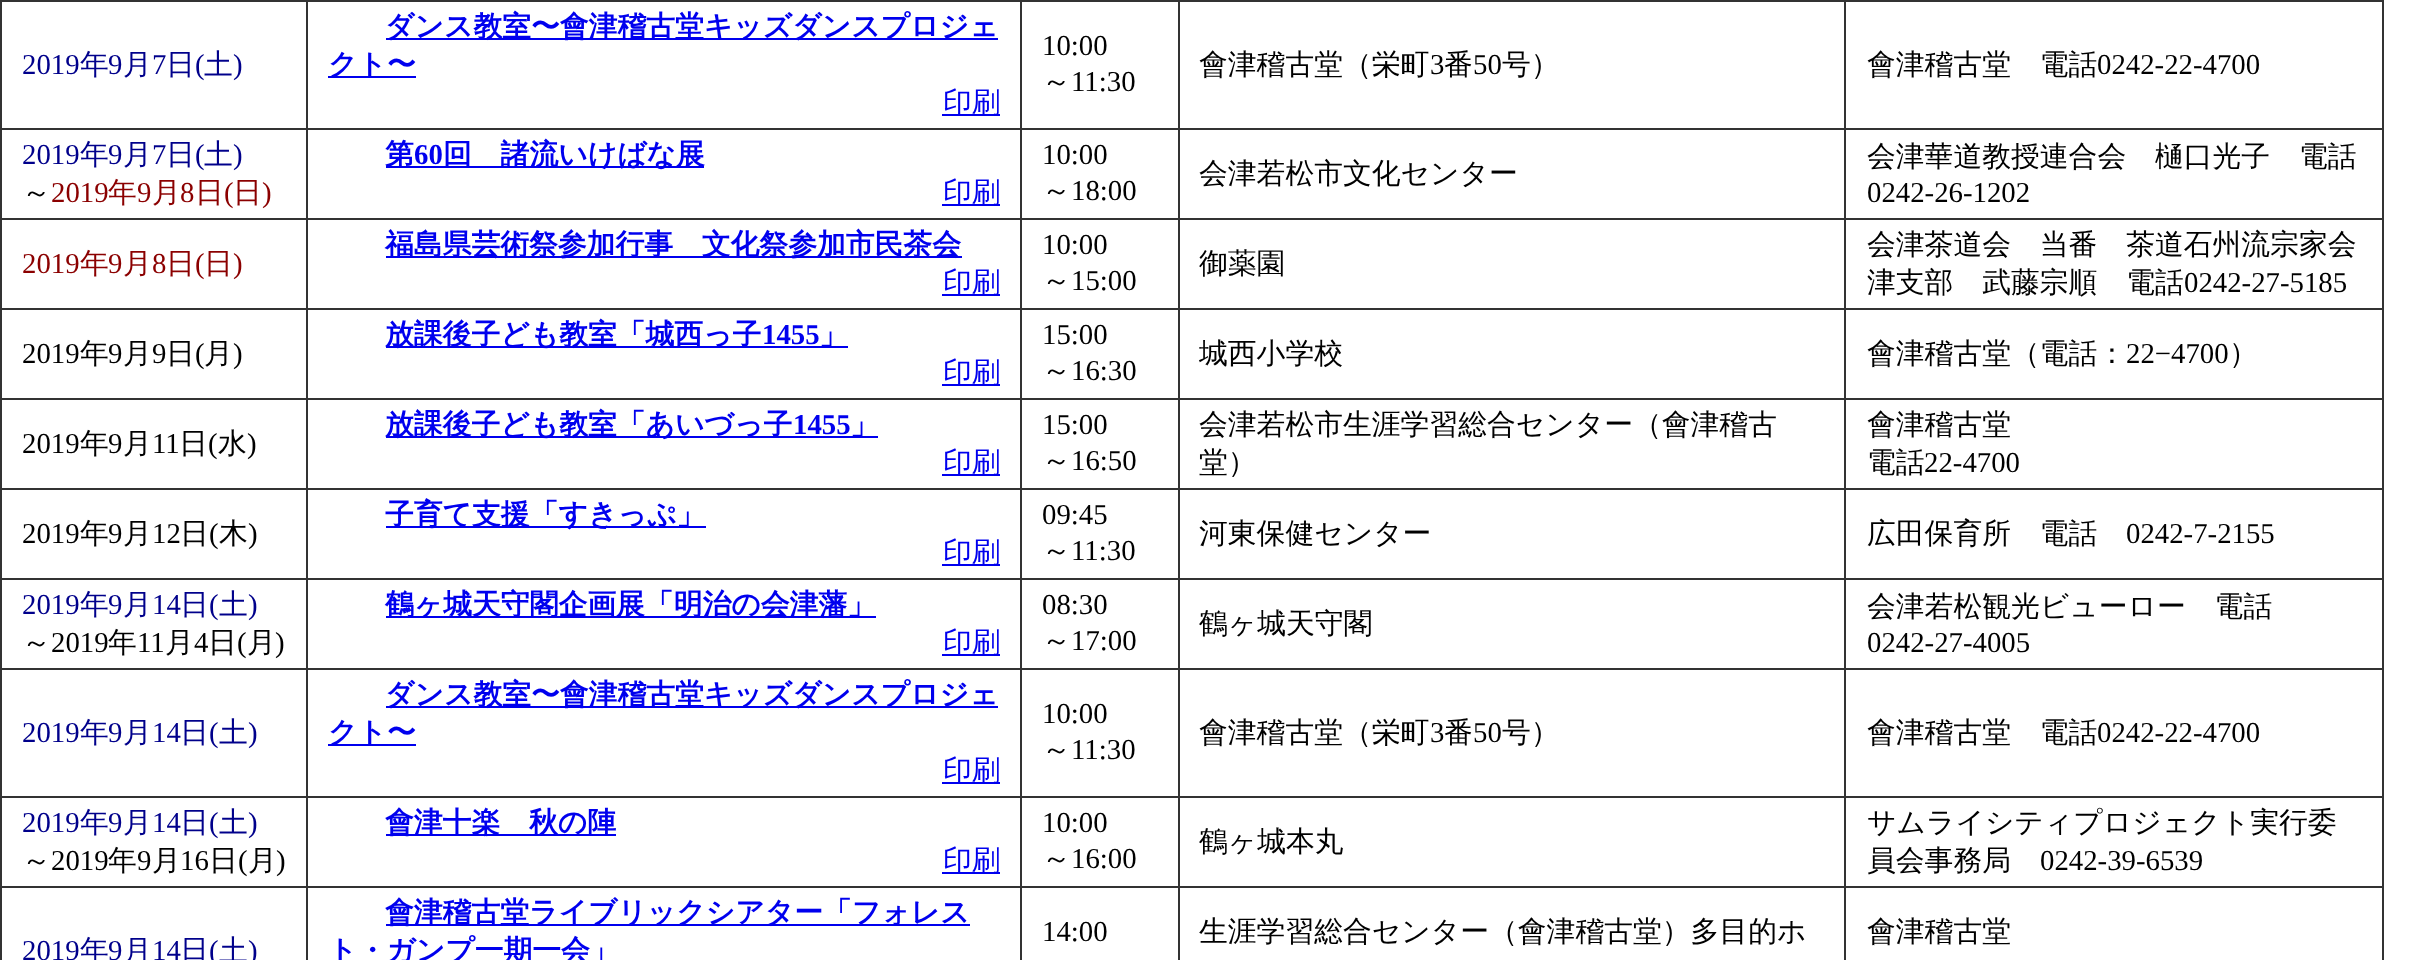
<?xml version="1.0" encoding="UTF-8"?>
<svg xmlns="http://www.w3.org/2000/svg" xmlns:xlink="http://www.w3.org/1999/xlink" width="2432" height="960">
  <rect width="100%" height="100%" fill="#ffffff" />
  <rect x="2382" width="2" height="960" fill="#333333" />
  <rect width="2382" height="2" fill="#333333" />
  <rect y="128" width="2382" height="2" fill="#333333" />
  <rect y="2" width="2" height="128" fill="#333333" />
  <rect x="306" y="2" width="2" height="128" fill="#333333" />
  <rect x="386" y="38" width="612" height="2" fill="#0000ee" />
  <rect x="328" y="76" width="88" height="2" fill="#0000ee" />
  <rect x="942" y="114" width="58" height="2" fill="#0000ee" />
  <rect x="1020" y="2" width="2" height="128" fill="#333333" />
  <rect x="1178" y="2" width="2" height="128" fill="#333333" />
  <rect x="1844" y="2" width="2" height="128" fill="#333333" />
  <rect y="218" width="2382" height="2" fill="#333333" />
  <rect y="130" width="2" height="90" fill="#333333" />
  <rect x="306" y="130" width="2" height="90" fill="#333333" />
  <rect x="386" y="166" width="318" height="2" fill="#0000ee" />
  <rect x="942" y="204" width="58" height="2" fill="#0000ee" />
  <rect x="1020" y="130" width="2" height="90" fill="#333333" />
  <rect x="1178" y="130" width="2" height="90" fill="#333333" />
  <rect x="1844" y="130" width="2" height="90" fill="#333333" />
  <rect y="308" width="2382" height="2" fill="#333333" />
  <rect y="220" width="2" height="90" fill="#333333" />
  <rect x="306" y="220" width="2" height="90" fill="#333333" />
  <rect x="386" y="256" width="576" height="2" fill="#0000ee" />
  <rect x="942" y="294" width="58" height="2" fill="#0000ee" />
  <rect x="1020" y="220" width="2" height="90" fill="#333333" />
  <rect x="1178" y="220" width="2" height="90" fill="#333333" />
  <rect x="1844" y="220" width="2" height="90" fill="#333333" />
  <rect y="398" width="2382" height="2" fill="#333333" />
  <rect y="310" width="2" height="90" fill="#333333" />
  <rect x="306" y="310" width="2" height="90" fill="#333333" />
  <rect x="386" y="346" width="462" height="2" fill="#0000ee" />
  <rect x="942" y="384" width="58" height="2" fill="#0000ee" />
  <rect x="1020" y="310" width="2" height="90" fill="#333333" />
  <rect x="1178" y="310" width="2" height="90" fill="#333333" />
  <rect x="1844" y="310" width="2" height="90" fill="#333333" />
  <rect y="488" width="2382" height="2" fill="#333333" />
  <rect y="400" width="2" height="90" fill="#333333" />
  <rect x="306" y="400" width="2" height="90" fill="#333333" />
  <rect x="386" y="436" width="492" height="2" fill="#0000ee" />
  <rect x="942" y="474" width="58" height="2" fill="#0000ee" />
  <rect x="1020" y="400" width="2" height="90" fill="#333333" />
  <rect x="1178" y="400" width="2" height="90" fill="#333333" />
  <rect x="1844" y="400" width="2" height="90" fill="#333333" />
  <rect y="578" width="2382" height="2" fill="#333333" />
  <rect y="490" width="2" height="90" fill="#333333" />
  <rect x="306" y="490" width="2" height="90" fill="#333333" />
  <rect x="386" y="526" width="320" height="2" fill="#0000ee" />
  <rect x="942" y="564" width="58" height="2" fill="#0000ee" />
  <rect x="1020" y="490" width="2" height="90" fill="#333333" />
  <rect x="1178" y="490" width="2" height="90" fill="#333333" />
  <rect x="1844" y="490" width="2" height="90" fill="#333333" />
  <rect y="668" width="2382" height="2" fill="#333333" />
  <rect y="580" width="2" height="90" fill="#333333" />
  <rect x="306" y="580" width="2" height="90" fill="#333333" />
  <rect x="386" y="616" width="490" height="2" fill="#0000ee" />
  <rect x="942" y="654" width="58" height="2" fill="#0000ee" />
  <rect x="1020" y="580" width="2" height="90" fill="#333333" />
  <rect x="1178" y="580" width="2" height="90" fill="#333333" />
  <rect x="1844" y="580" width="2" height="90" fill="#333333" />
  <rect y="796" width="2382" height="2" fill="#333333" />
  <rect y="670" width="2" height="128" fill="#333333" />
  <rect x="306" y="670" width="2" height="128" fill="#333333" />
  <rect x="386" y="706" width="612" height="2" fill="#0000ee" />
  <rect x="328" y="744" width="88" height="2" fill="#0000ee" />
  <rect x="942" y="782" width="58" height="2" fill="#0000ee" />
  <rect x="1020" y="670" width="2" height="128" fill="#333333" />
  <rect x="1178" y="670" width="2" height="128" fill="#333333" />
  <rect x="1844" y="670" width="2" height="128" fill="#333333" />
  <rect y="886" width="2382" height="2" fill="#333333" />
  <rect y="798" width="2" height="162" fill="#333333" />
  <rect x="306" y="798" width="2" height="162" fill="#333333" />
  <rect x="386" y="834" width="230" height="2" fill="#0000ee" />
  <rect x="942" y="872" width="58" height="2" fill="#0000ee" />
  <rect x="1020" y="798" width="2" height="162" fill="#333333" />
  <rect x="1178" y="798" width="2" height="162" fill="#333333" />
  <rect x="1844" y="798" width="2" height="162" fill="#333333" />
  <rect x="386" y="924" width="584" height="2" fill="#0000ee" />
  <text x="22" y="74" style="font-family: Liberation Serif; font-size: 28.8px; fill: #00008b">2019</text>
  <text x="80" y="74" style="font-family: WenQuanYi Zen Hei; font-size: 28.8px; font-weight: 500; fill: #00008b">年</text>
  <text x="108" y="74" style="font-family: Liberation Serif; font-size: 28.8px; fill: #00008b">9</text>
  <text x="123" y="74" style="font-family: WenQuanYi Zen Hei; font-size: 28.8px; font-weight: 500; fill: #00008b">月</text>
  <text x="152" y="74" style="font-family: Liberation Serif; font-size: 28.8px; fill: #00008b">7</text>
  <text x="166" y="74" style="font-family: WenQuanYi Zen Hei; font-size: 28.8px; font-weight: 500; fill: #00008b">日</text>
  <text x="195" y="74" style="font-family: Liberation Serif; font-size: 28.8px; fill: #00008b">(</text>
  <text x="204" y="74" style="font-family: WenQuanYi Zen Hei; font-size: 28.8px; font-weight: 500; fill: #00008b">土</text>
  <text x="233" y="74" style="font-family: Liberation Serif; font-size: 28.8px; fill: #00008b">)</text>
  <text x="385" y="36" style="font-family: WenQuanYi Zen Hei; font-size: 28.8px; font-weight: bold; fill: #0000ee">ダンス教室〜會津稽古堂キッズダンスプロジェ</text>
  <text x="328" y="74" style="font-family: WenQuanYi Zen Hei; font-size: 28.8px; font-weight: bold; fill: #0000ee">クト〜</text>
  <text x="943" y="112" style="font-family: WenQuanYi Zen Hei; font-size: 28.8px; font-weight: 500; fill: #0000ee">印刷</text>
  <text x="1042" y="55" style="font-family: Liberation Serif; font-size: 28.8px; fill: #000000">10:00</text>
  <text x="1042" y="91" style="font-family: WenQuanYi Zen Hei; font-size: 28.8px; font-weight: 500; fill: #000000">～</text>
  <text x="1071" y="91" style="font-family: Liberation Serif; font-size: 28.8px; fill: #000000">11:30</text>
  <text x="1199" y="74" style="font-family: WenQuanYi Zen Hei; font-size: 28.8px; font-weight: 500; fill: #000000">會津稽古堂（栄町</text>
  <text x="1430" y="74" style="font-family: Liberation Serif; font-size: 28.8px; fill: #000000">3</text>
  <text x="1444" y="74" style="font-family: WenQuanYi Zen Hei; font-size: 28.8px; font-weight: 500; fill: #000000">番</text>
  <text x="1473" y="74" style="font-family: Liberation Serif; font-size: 28.8px; fill: #000000">50</text>
  <text x="1502" y="74" style="font-family: WenQuanYi Zen Hei; font-size: 28.8px; font-weight: 500; fill: #000000">号）</text>
  <text x="1867" y="74" style="font-family: WenQuanYi Zen Hei; font-size: 28.8px; font-weight: 500; fill: #000000">會津稽古堂　電話</text>
  <text x="2097" y="74" style="font-family: Liberation Serif; font-size: 28.8px; fill: #000000">0242-22-4700</text>
  <text x="22" y="164" style="font-family: Liberation Serif; font-size: 28.8px; fill: #00008b">2019</text>
  <text x="80" y="164" style="font-family: WenQuanYi Zen Hei; font-size: 28.8px; font-weight: 500; fill: #00008b">年</text>
  <text x="108" y="164" style="font-family: Liberation Serif; font-size: 28.8px; fill: #00008b">9</text>
  <text x="123" y="164" style="font-family: WenQuanYi Zen Hei; font-size: 28.8px; font-weight: 500; fill: #00008b">月</text>
  <text x="152" y="164" style="font-family: Liberation Serif; font-size: 28.8px; fill: #00008b">7</text>
  <text x="166" y="164" style="font-family: WenQuanYi Zen Hei; font-size: 28.8px; font-weight: 500; fill: #00008b">日</text>
  <text x="195" y="164" style="font-family: Liberation Serif; font-size: 28.8px; fill: #00008b">(</text>
  <text x="204" y="164" style="font-family: WenQuanYi Zen Hei; font-size: 28.8px; font-weight: 500; fill: #00008b">土</text>
  <text x="233" y="164" style="font-family: Liberation Serif; font-size: 28.8px; fill: #00008b">)</text>
  <text x="22" y="202" style="font-family: WenQuanYi Zen Hei; font-size: 28.8px; font-weight: 500; fill: #000000">～</text>
  <text x="51" y="202" style="font-family: Liberation Serif; font-size: 28.8px; fill: #8b0000">2019</text>
  <text x="108" y="202" style="font-family: WenQuanYi Zen Hei; font-size: 28.8px; font-weight: 500; fill: #8b0000">年</text>
  <text x="137" y="202" style="font-family: Liberation Serif; font-size: 28.8px; fill: #8b0000">9</text>
  <text x="152" y="202" style="font-family: WenQuanYi Zen Hei; font-size: 28.8px; font-weight: 500; fill: #8b0000">月</text>
  <text x="180" y="202" style="font-family: Liberation Serif; font-size: 28.8px; fill: #8b0000">8</text>
  <text x="195" y="202" style="font-family: WenQuanYi Zen Hei; font-size: 28.8px; font-weight: 500; fill: #8b0000">日</text>
  <text x="224" y="202" style="font-family: Liberation Serif; font-size: 28.8px; fill: #8b0000">(</text>
  <text x="233" y="202" style="font-family: WenQuanYi Zen Hei; font-size: 28.8px; font-weight: 500; fill: #8b0000">日</text>
  <text x="262" y="202" style="font-family: Liberation Serif; font-size: 28.8px; fill: #8b0000">)</text>
  <text x="385" y="164" style="font-family: WenQuanYi Zen Hei; font-size: 28.8px; font-weight: bold; fill: #0000ee">第</text>
  <text x="414" y="164" style="font-family: Liberation Serif; font-size: 28.8px; font-weight: bold; fill: #0000ee">60</text>
  <text x="443" y="164" style="font-family: WenQuanYi Zen Hei; font-size: 28.8px; font-weight: bold; fill: #0000ee">回　諸流いけばな展</text>
  <text x="943" y="202" style="font-family: WenQuanYi Zen Hei; font-size: 28.8px; font-weight: 500; fill: #0000ee">印刷</text>
  <text x="1042" y="164" style="font-family: Liberation Serif; font-size: 28.8px; fill: #000000">10:00</text>
  <text x="1042" y="200" style="font-family: WenQuanYi Zen Hei; font-size: 28.8px; font-weight: 500; fill: #000000">～</text>
  <text x="1071" y="200" style="font-family: Liberation Serif; font-size: 28.8px; fill: #000000">18:00</text>
  <text x="1199" y="183" style="font-family: WenQuanYi Zen Hei; font-size: 28.8px; font-weight: 500; fill: #000000">会津若松市文化センター</text>
  <text x="1867" y="166" style="font-family: WenQuanYi Zen Hei; font-size: 28.8px; font-weight: 500; fill: #000000">会津華道教授連合会　樋口光子　電話</text>
  <text x="1867" y="202" style="font-family: Liberation Serif; font-size: 28.8px; fill: #000000">0242-26-1202</text>
  <text x="22" y="273" style="font-family: Liberation Serif; font-size: 28.8px; fill: #8b0000">2019</text>
  <text x="80" y="273" style="font-family: WenQuanYi Zen Hei; font-size: 28.8px; font-weight: 500; fill: #8b0000">年</text>
  <text x="108" y="273" style="font-family: Liberation Serif; font-size: 28.8px; fill: #8b0000">9</text>
  <text x="123" y="273" style="font-family: WenQuanYi Zen Hei; font-size: 28.8px; font-weight: 500; fill: #8b0000">月</text>
  <text x="152" y="273" style="font-family: Liberation Serif; font-size: 28.8px; fill: #8b0000">8</text>
  <text x="166" y="273" style="font-family: WenQuanYi Zen Hei; font-size: 28.8px; font-weight: 500; fill: #8b0000">日</text>
  <text x="195" y="273" style="font-family: Liberation Serif; font-size: 28.8px; fill: #8b0000">(</text>
  <text x="204" y="273" style="font-family: WenQuanYi Zen Hei; font-size: 28.8px; font-weight: 500; fill: #8b0000">日</text>
  <text x="233" y="273" style="font-family: Liberation Serif; font-size: 28.8px; fill: #8b0000">)</text>
  <text x="385" y="254" style="font-family: WenQuanYi Zen Hei; font-size: 28.8px; font-weight: bold; fill: #0000ee">福島県芸術祭参加行事　文化祭参加市民茶会</text>
  <text x="943" y="292" style="font-family: WenQuanYi Zen Hei; font-size: 28.8px; font-weight: 500; fill: #0000ee">印刷</text>
  <text x="1042" y="254" style="font-family: Liberation Serif; font-size: 28.8px; fill: #000000">10:00</text>
  <text x="1042" y="290" style="font-family: WenQuanYi Zen Hei; font-size: 28.8px; font-weight: 500; fill: #000000">～</text>
  <text x="1071" y="290" style="font-family: Liberation Serif; font-size: 28.8px; fill: #000000">15:00</text>
  <text x="1199" y="273" style="font-family: WenQuanYi Zen Hei; font-size: 28.8px; font-weight: 500; fill: #000000">御薬園</text>
  <text x="1867" y="254" style="font-family: WenQuanYi Zen Hei; font-size: 28.8px; font-weight: 500; fill: #000000">会津茶道会　当番　茶道石州流宗家会</text>
  <text x="1867" y="292" style="font-family: WenQuanYi Zen Hei; font-size: 28.8px; font-weight: 500; fill: #000000">津支部　武藤宗順　電話</text>
  <text x="2184" y="292" style="font-family: Liberation Serif; font-size: 28.8px; fill: #000000">0242-27-5185</text>
  <text x="22" y="363" style="font-family: Liberation Serif; font-size: 28.8px; fill: #000000">2019</text>
  <text x="80" y="363" style="font-family: WenQuanYi Zen Hei; font-size: 28.8px; font-weight: 500; fill: #000000">年</text>
  <text x="108" y="363" style="font-family: Liberation Serif; font-size: 28.8px; fill: #000000">9</text>
  <text x="123" y="363" style="font-family: WenQuanYi Zen Hei; font-size: 28.8px; font-weight: 500; fill: #000000">月</text>
  <text x="152" y="363" style="font-family: Liberation Serif; font-size: 28.8px; fill: #000000">9</text>
  <text x="166" y="363" style="font-family: WenQuanYi Zen Hei; font-size: 28.8px; font-weight: 500; fill: #000000">日</text>
  <text x="195" y="363" style="font-family: Liberation Serif; font-size: 28.8px; fill: #000000">(</text>
  <text x="204" y="363" style="font-family: WenQuanYi Zen Hei; font-size: 28.8px; font-weight: 500; fill: #000000">月</text>
  <text x="233" y="363" style="font-family: Liberation Serif; font-size: 28.8px; fill: #000000">)</text>
  <text x="385" y="344" style="font-family: WenQuanYi Zen Hei; font-size: 28.8px; font-weight: bold; fill: #0000ee">放課後子ども教室「城西っ子</text>
  <text x="762" y="344" style="font-family: Liberation Serif; font-size: 28.8px; font-weight: bold; fill: #0000ee">1455</text>
  <text x="819" y="344" style="font-family: WenQuanYi Zen Hei; font-size: 28.8px; font-weight: bold; fill: #0000ee">」</text>
  <text x="943" y="382" style="font-family: WenQuanYi Zen Hei; font-size: 28.8px; font-weight: 500; fill: #0000ee">印刷</text>
  <text x="1042" y="344" style="font-family: Liberation Serif; font-size: 28.8px; fill: #000000">15:00</text>
  <text x="1042" y="380" style="font-family: WenQuanYi Zen Hei; font-size: 28.8px; font-weight: 500; fill: #000000">～</text>
  <text x="1071" y="380" style="font-family: Liberation Serif; font-size: 28.8px; fill: #000000">16:30</text>
  <text x="1199" y="363" style="font-family: WenQuanYi Zen Hei; font-size: 28.8px; font-weight: 500; fill: #000000">城西小学校</text>
  <text x="1867" y="363" style="font-family: WenQuanYi Zen Hei; font-size: 28.8px; font-weight: 500; fill: #000000">會津稽古堂（電話：</text>
  <text x="2126" y="363" style="font-family: Liberation Serif; font-size: 28.8px; fill: #000000">22−4700</text>
  <text x="2229" y="363" style="font-family: WenQuanYi Zen Hei; font-size: 28.8px; font-weight: 500; fill: #000000">）</text>
  <text x="22" y="453" style="font-family: Liberation Serif; font-size: 28.8px; fill: #000000">2019</text>
  <text x="80" y="453" style="font-family: WenQuanYi Zen Hei; font-size: 28.8px; font-weight: 500; fill: #000000">年</text>
  <text x="108" y="453" style="font-family: Liberation Serif; font-size: 28.8px; fill: #000000">9</text>
  <text x="123" y="453" style="font-family: WenQuanYi Zen Hei; font-size: 28.8px; font-weight: 500; fill: #000000">月</text>
  <text x="152" y="453" style="font-family: Liberation Serif; font-size: 28.8px; fill: #000000">11</text>
  <text x="179" y="453" style="font-family: WenQuanYi Zen Hei; font-size: 28.8px; font-weight: 500; fill: #000000">日</text>
  <text x="208" y="453" style="font-family: Liberation Serif; font-size: 28.8px; fill: #000000">(</text>
  <text x="218" y="453" style="font-family: WenQuanYi Zen Hei; font-size: 28.8px; font-weight: 500; fill: #000000">水</text>
  <text x="247" y="453" style="font-family: Liberation Serif; font-size: 28.8px; fill: #000000">)</text>
  <text x="385" y="434" style="font-family: WenQuanYi Zen Hei; font-size: 28.8px; font-weight: bold; fill: #0000ee">放課後子ども教室「あいづっ子</text>
  <text x="793" y="434" style="font-family: Liberation Serif; font-size: 28.8px; font-weight: bold; fill: #0000ee">1455</text>
  <text x="850" y="434" style="font-family: WenQuanYi Zen Hei; font-size: 28.8px; font-weight: bold; fill: #0000ee">」</text>
  <text x="943" y="472" style="font-family: WenQuanYi Zen Hei; font-size: 28.8px; font-weight: 500; fill: #0000ee">印刷</text>
  <text x="1042" y="434" style="font-family: Liberation Serif; font-size: 28.8px; fill: #000000">15:00</text>
  <text x="1042" y="470" style="font-family: WenQuanYi Zen Hei; font-size: 28.8px; font-weight: 500; fill: #000000">～</text>
  <text x="1071" y="470" style="font-family: Liberation Serif; font-size: 28.8px; fill: #000000">16:50</text>
  <text x="1199" y="434" style="font-family: WenQuanYi Zen Hei; font-size: 28.8px; font-weight: 500; fill: #000000">会津若松市生涯学習総合センター（會津稽古</text>
  <text x="1199" y="472" style="font-family: WenQuanYi Zen Hei; font-size: 28.8px; font-weight: 500; fill: #000000">堂）</text>
  <text x="1867" y="434" style="font-family: WenQuanYi Zen Hei; font-size: 28.8px; font-weight: 500; fill: #000000">會津稽古堂</text>
  <text x="1867" y="472" style="font-family: WenQuanYi Zen Hei; font-size: 28.8px; font-weight: 500; fill: #000000">電話</text>
  <text x="1924" y="472" style="font-family: Liberation Serif; font-size: 28.8px; fill: #000000">22-4700</text>
  <text x="22" y="543" style="font-family: Liberation Serif; font-size: 28.8px; fill: #000000">2019</text>
  <text x="80" y="543" style="font-family: WenQuanYi Zen Hei; font-size: 28.8px; font-weight: 500; fill: #000000">年</text>
  <text x="108" y="543" style="font-family: Liberation Serif; font-size: 28.8px; fill: #000000">9</text>
  <text x="123" y="543" style="font-family: WenQuanYi Zen Hei; font-size: 28.8px; font-weight: 500; fill: #000000">月</text>
  <text x="152" y="543" style="font-family: Liberation Serif; font-size: 28.8px; fill: #000000">12</text>
  <text x="180" y="543" style="font-family: WenQuanYi Zen Hei; font-size: 28.8px; font-weight: 500; fill: #000000">日</text>
  <text x="209" y="543" style="font-family: Liberation Serif; font-size: 28.8px; fill: #000000">(</text>
  <text x="219" y="543" style="font-family: WenQuanYi Zen Hei; font-size: 28.8px; font-weight: 500; fill: #000000">木</text>
  <text x="248" y="543" style="font-family: Liberation Serif; font-size: 28.8px; fill: #000000">)</text>
  <text x="385" y="524" style="font-family: WenQuanYi Zen Hei; font-size: 28.8px; font-weight: bold; fill: #0000ee">子育て支援「すきっぷ」</text>
  <text x="943" y="562" style="font-family: WenQuanYi Zen Hei; font-size: 28.8px; font-weight: 500; fill: #0000ee">印刷</text>
  <text x="1042" y="524" style="font-family: Liberation Serif; font-size: 28.8px; fill: #000000">09:45</text>
  <text x="1042" y="560" style="font-family: WenQuanYi Zen Hei; font-size: 28.8px; font-weight: 500; fill: #000000">～</text>
  <text x="1071" y="560" style="font-family: Liberation Serif; font-size: 28.8px; fill: #000000">11:30</text>
  <text x="1199" y="543" style="font-family: WenQuanYi Zen Hei; font-size: 28.8px; font-weight: 500; fill: #000000">河東保健センター</text>
  <text x="1867" y="543" style="font-family: WenQuanYi Zen Hei; font-size: 28.8px; font-weight: 500; fill: #000000">広田保育所　電話</text>
  <text x="2126" y="543" style="font-family: Liberation Serif; font-size: 28.8px; fill: #000000">0242-7-2155</text>
  <text x="22" y="614" style="font-family: Liberation Serif; font-size: 28.8px; fill: #00008b">2019</text>
  <text x="80" y="614" style="font-family: WenQuanYi Zen Hei; font-size: 28.8px; font-weight: 500; fill: #00008b">年</text>
  <text x="108" y="614" style="font-family: Liberation Serif; font-size: 28.8px; fill: #00008b">9</text>
  <text x="123" y="614" style="font-family: WenQuanYi Zen Hei; font-size: 28.8px; font-weight: 500; fill: #00008b">月</text>
  <text x="152" y="614" style="font-family: Liberation Serif; font-size: 28.8px; fill: #00008b">14</text>
  <text x="180" y="614" style="font-family: WenQuanYi Zen Hei; font-size: 28.8px; font-weight: 500; fill: #00008b">日</text>
  <text x="209" y="614" style="font-family: Liberation Serif; font-size: 28.8px; fill: #00008b">(</text>
  <text x="219" y="614" style="font-family: WenQuanYi Zen Hei; font-size: 28.8px; font-weight: 500; fill: #00008b">土</text>
  <text x="248" y="614" style="font-family: Liberation Serif; font-size: 28.8px; fill: #00008b">)</text>
  <text x="22" y="652" style="font-family: WenQuanYi Zen Hei; font-size: 28.8px; font-weight: 500; fill: #000000">～</text>
  <text x="51" y="652" style="font-family: Liberation Serif; font-size: 28.8px; fill: #000000">2019</text>
  <text x="108" y="652" style="font-family: WenQuanYi Zen Hei; font-size: 28.8px; font-weight: 500; fill: #000000">年</text>
  <text x="137" y="652" style="font-family: Liberation Serif; font-size: 28.8px; fill: #000000">11</text>
  <text x="165" y="652" style="font-family: WenQuanYi Zen Hei; font-size: 28.8px; font-weight: 500; fill: #000000">月</text>
  <text x="194" y="652" style="font-family: Liberation Serif; font-size: 28.8px; fill: #000000">4</text>
  <text x="208" y="652" style="font-family: WenQuanYi Zen Hei; font-size: 28.8px; font-weight: 500; fill: #000000">日</text>
  <text x="237" y="652" style="font-family: Liberation Serif; font-size: 28.8px; fill: #000000">(</text>
  <text x="247" y="652" style="font-family: WenQuanYi Zen Hei; font-size: 28.8px; font-weight: 500; fill: #000000">月</text>
  <text x="275" y="652" style="font-family: Liberation Serif; font-size: 28.8px; fill: #000000">)</text>
  <text x="385" y="614" style="font-family: WenQuanYi Zen Hei; font-size: 28.8px; font-weight: bold; fill: #0000ee">鶴ヶ城天守閣企画展「明治の会津藩」</text>
  <text x="943" y="652" style="font-family: WenQuanYi Zen Hei; font-size: 28.8px; font-weight: 500; fill: #0000ee">印刷</text>
  <text x="1042" y="614" style="font-family: Liberation Serif; font-size: 28.8px; fill: #000000">08:30</text>
  <text x="1042" y="650" style="font-family: WenQuanYi Zen Hei; font-size: 28.8px; font-weight: 500; fill: #000000">～</text>
  <text x="1071" y="650" style="font-family: Liberation Serif; font-size: 28.8px; fill: #000000">17:00</text>
  <text x="1199" y="633" style="font-family: WenQuanYi Zen Hei; font-size: 28.8px; font-weight: 500; fill: #000000">鶴ヶ城天守閣</text>
  <text x="1867" y="616" style="font-family: WenQuanYi Zen Hei; font-size: 28.8px; font-weight: 500; fill: #000000">会津若松観光ビューロー　電話</text>
  <text x="1867" y="652" style="font-family: Liberation Serif; font-size: 28.8px; fill: #000000">0242-27-4005</text>
  <text x="22" y="742" style="font-family: Liberation Serif; font-size: 28.8px; fill: #00008b">2019</text>
  <text x="80" y="742" style="font-family: WenQuanYi Zen Hei; font-size: 28.8px; font-weight: 500; fill: #00008b">年</text>
  <text x="108" y="742" style="font-family: Liberation Serif; font-size: 28.8px; fill: #00008b">9</text>
  <text x="123" y="742" style="font-family: WenQuanYi Zen Hei; font-size: 28.8px; font-weight: 500; fill: #00008b">月</text>
  <text x="152" y="742" style="font-family: Liberation Serif; font-size: 28.8px; fill: #00008b">14</text>
  <text x="180" y="742" style="font-family: WenQuanYi Zen Hei; font-size: 28.8px; font-weight: 500; fill: #00008b">日</text>
  <text x="209" y="742" style="font-family: Liberation Serif; font-size: 28.8px; fill: #00008b">(</text>
  <text x="219" y="742" style="font-family: WenQuanYi Zen Hei; font-size: 28.8px; font-weight: 500; fill: #00008b">土</text>
  <text x="248" y="742" style="font-family: Liberation Serif; font-size: 28.8px; fill: #00008b">)</text>
  <text x="385" y="704" style="font-family: WenQuanYi Zen Hei; font-size: 28.8px; font-weight: bold; fill: #0000ee">ダンス教室〜會津稽古堂キッズダンスプロジェ</text>
  <text x="328" y="742" style="font-family: WenQuanYi Zen Hei; font-size: 28.8px; font-weight: bold; fill: #0000ee">クト〜</text>
  <text x="943" y="780" style="font-family: WenQuanYi Zen Hei; font-size: 28.8px; font-weight: 500; fill: #0000ee">印刷</text>
  <text x="1042" y="723" style="font-family: Liberation Serif; font-size: 28.8px; fill: #000000">10:00</text>
  <text x="1042" y="759" style="font-family: WenQuanYi Zen Hei; font-size: 28.8px; font-weight: 500; fill: #000000">～</text>
  <text x="1071" y="759" style="font-family: Liberation Serif; font-size: 28.8px; fill: #000000">11:30</text>
  <text x="1199" y="742" style="font-family: WenQuanYi Zen Hei; font-size: 28.8px; font-weight: 500; fill: #000000">會津稽古堂（栄町</text>
  <text x="1430" y="742" style="font-family: Liberation Serif; font-size: 28.8px; fill: #000000">3</text>
  <text x="1444" y="742" style="font-family: WenQuanYi Zen Hei; font-size: 28.8px; font-weight: 500; fill: #000000">番</text>
  <text x="1473" y="742" style="font-family: Liberation Serif; font-size: 28.8px; fill: #000000">50</text>
  <text x="1502" y="742" style="font-family: WenQuanYi Zen Hei; font-size: 28.8px; font-weight: 500; fill: #000000">号）</text>
  <text x="1867" y="742" style="font-family: WenQuanYi Zen Hei; font-size: 28.8px; font-weight: 500; fill: #000000">會津稽古堂　電話</text>
  <text x="2097" y="742" style="font-family: Liberation Serif; font-size: 28.8px; fill: #000000">0242-22-4700</text>
  <text x="22" y="832" style="font-family: Liberation Serif; font-size: 28.8px; fill: #00008b">2019</text>
  <text x="80" y="832" style="font-family: WenQuanYi Zen Hei; font-size: 28.8px; font-weight: 500; fill: #00008b">年</text>
  <text x="108" y="832" style="font-family: Liberation Serif; font-size: 28.8px; fill: #00008b">9</text>
  <text x="123" y="832" style="font-family: WenQuanYi Zen Hei; font-size: 28.8px; font-weight: 500; fill: #00008b">月</text>
  <text x="152" y="832" style="font-family: Liberation Serif; font-size: 28.8px; fill: #00008b">14</text>
  <text x="180" y="832" style="font-family: WenQuanYi Zen Hei; font-size: 28.8px; font-weight: 500; fill: #00008b">日</text>
  <text x="209" y="832" style="font-family: Liberation Serif; font-size: 28.8px; fill: #00008b">(</text>
  <text x="219" y="832" style="font-family: WenQuanYi Zen Hei; font-size: 28.8px; font-weight: 500; fill: #00008b">土</text>
  <text x="248" y="832" style="font-family: Liberation Serif; font-size: 28.8px; fill: #00008b">)</text>
  <text x="22" y="870" style="font-family: WenQuanYi Zen Hei; font-size: 28.8px; font-weight: 500; fill: #000000">～</text>
  <text x="51" y="870" style="font-family: Liberation Serif; font-size: 28.8px; fill: #000000">2019</text>
  <text x="108" y="870" style="font-family: WenQuanYi Zen Hei; font-size: 28.8px; font-weight: 500; fill: #000000">年</text>
  <text x="137" y="870" style="font-family: Liberation Serif; font-size: 28.8px; fill: #000000">9</text>
  <text x="152" y="870" style="font-family: WenQuanYi Zen Hei; font-size: 28.8px; font-weight: 500; fill: #000000">月</text>
  <text x="180" y="870" style="font-family: Liberation Serif; font-size: 28.8px; fill: #000000">16</text>
  <text x="209" y="870" style="font-family: WenQuanYi Zen Hei; font-size: 28.8px; font-weight: 500; fill: #000000">日</text>
  <text x="238" y="870" style="font-family: Liberation Serif; font-size: 28.8px; fill: #000000">(</text>
  <text x="248" y="870" style="font-family: WenQuanYi Zen Hei; font-size: 28.8px; font-weight: 500; fill: #000000">月</text>
  <text x="276" y="870" style="font-family: Liberation Serif; font-size: 28.8px; fill: #000000">)</text>
  <text x="385" y="832" style="font-family: WenQuanYi Zen Hei; font-size: 28.8px; font-weight: bold; fill: #0000ee">會津十楽　秋の陣</text>
  <text x="943" y="870" style="font-family: WenQuanYi Zen Hei; font-size: 28.8px; font-weight: 500; fill: #0000ee">印刷</text>
  <text x="1042" y="832" style="font-family: Liberation Serif; font-size: 28.8px; fill: #000000">10:00</text>
  <text x="1042" y="868" style="font-family: WenQuanYi Zen Hei; font-size: 28.8px; font-weight: 500; fill: #000000">～</text>
  <text x="1071" y="868" style="font-family: Liberation Serif; font-size: 28.8px; fill: #000000">16:00</text>
  <text x="1199" y="851" style="font-family: WenQuanYi Zen Hei; font-size: 28.8px; font-weight: 500; fill: #000000">鶴ヶ城本丸</text>
  <text x="1867" y="832" style="font-family: WenQuanYi Zen Hei; font-size: 28.8px; font-weight: 500; fill: #000000">サムライシティプロジェクト実行委</text>
  <text x="1867" y="870" style="font-family: WenQuanYi Zen Hei; font-size: 28.8px; font-weight: 500; fill: #000000">員会事務局</text>
  <text x="2040" y="870" style="font-family: Liberation Serif; font-size: 28.8px; fill: #000000">0242-39-6539</text>
  <text x="385" y="922" style="font-family: WenQuanYi Zen Hei; font-size: 28.8px; font-weight: bold; fill: #0000ee">會津稽古堂ライブリックシアター「フォレス</text>
  <text x="328" y="960" style="font-family: WenQuanYi Zen Hei; font-size: 28.8px; font-weight: bold; fill: #0000ee">ト・ガンプ一期一会」</text>
  <text x="1042" y="941" style="font-family: Liberation Serif; font-size: 28.8px; fill: #000000">14:00</text>
  <text x="1199" y="941" style="font-family: WenQuanYi Zen Hei; font-size: 28.8px; font-weight: 500; fill: #000000">生涯学習総合センター（會津稽古堂）多目的ホ</text>
  <text x="1867" y="941" style="font-family: WenQuanYi Zen Hei; font-size: 28.8px; font-weight: 500; fill: #000000">會津稽古堂</text>
  <text x="22" y="960" style="font-family: Liberation Serif; font-size: 28.8px; fill: #00008b">2019</text>
  <text x="80" y="960" style="font-family: WenQuanYi Zen Hei; font-size: 28.8px; font-weight: 500; fill: #00008b">年</text>
  <text x="108" y="960" style="font-family: Liberation Serif; font-size: 28.8px; fill: #00008b">9</text>
  <text x="123" y="960" style="font-family: WenQuanYi Zen Hei; font-size: 28.8px; font-weight: 500; fill: #00008b">月</text>
  <text x="152" y="960" style="font-family: Liberation Serif; font-size: 28.8px; fill: #00008b">14</text>
  <text x="180" y="960" style="font-family: WenQuanYi Zen Hei; font-size: 28.8px; font-weight: 500; fill: #00008b">日</text>
  <text x="209" y="960" style="font-family: Liberation Serif; font-size: 28.8px; fill: #00008b">(</text>
  <text x="219" y="960" style="font-family: WenQuanYi Zen Hei; font-size: 28.8px; font-weight: 500; fill: #00008b">土</text>
  <text x="248" y="960" style="font-family: Liberation Serif; font-size: 28.8px; fill: #00008b">)</text>
</svg>
